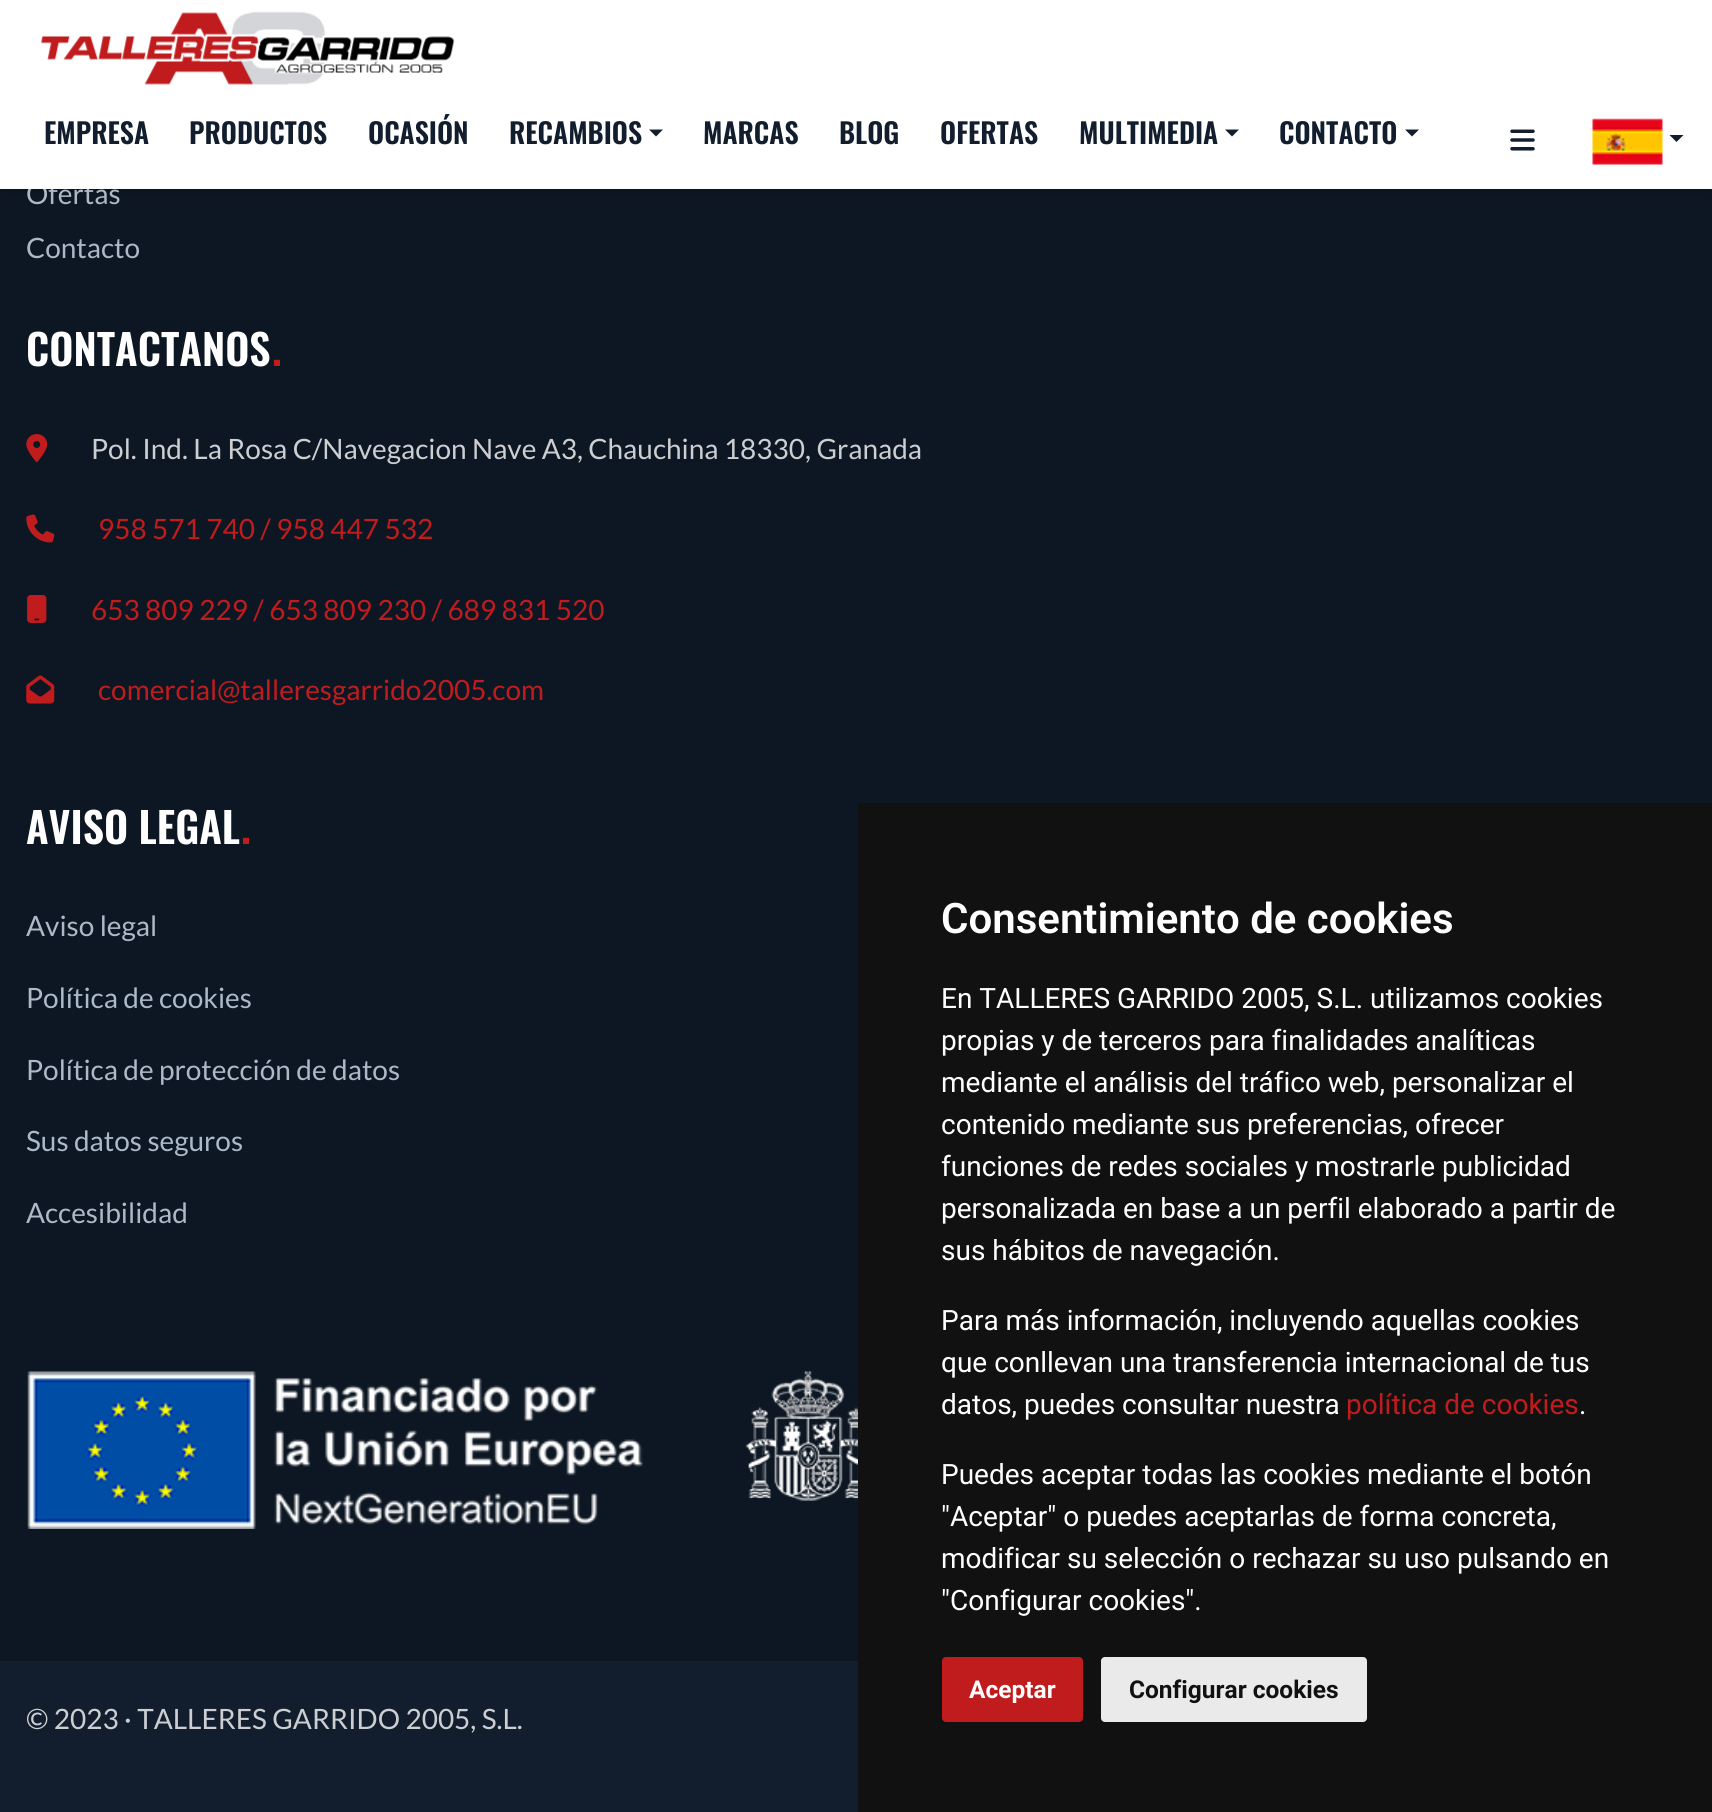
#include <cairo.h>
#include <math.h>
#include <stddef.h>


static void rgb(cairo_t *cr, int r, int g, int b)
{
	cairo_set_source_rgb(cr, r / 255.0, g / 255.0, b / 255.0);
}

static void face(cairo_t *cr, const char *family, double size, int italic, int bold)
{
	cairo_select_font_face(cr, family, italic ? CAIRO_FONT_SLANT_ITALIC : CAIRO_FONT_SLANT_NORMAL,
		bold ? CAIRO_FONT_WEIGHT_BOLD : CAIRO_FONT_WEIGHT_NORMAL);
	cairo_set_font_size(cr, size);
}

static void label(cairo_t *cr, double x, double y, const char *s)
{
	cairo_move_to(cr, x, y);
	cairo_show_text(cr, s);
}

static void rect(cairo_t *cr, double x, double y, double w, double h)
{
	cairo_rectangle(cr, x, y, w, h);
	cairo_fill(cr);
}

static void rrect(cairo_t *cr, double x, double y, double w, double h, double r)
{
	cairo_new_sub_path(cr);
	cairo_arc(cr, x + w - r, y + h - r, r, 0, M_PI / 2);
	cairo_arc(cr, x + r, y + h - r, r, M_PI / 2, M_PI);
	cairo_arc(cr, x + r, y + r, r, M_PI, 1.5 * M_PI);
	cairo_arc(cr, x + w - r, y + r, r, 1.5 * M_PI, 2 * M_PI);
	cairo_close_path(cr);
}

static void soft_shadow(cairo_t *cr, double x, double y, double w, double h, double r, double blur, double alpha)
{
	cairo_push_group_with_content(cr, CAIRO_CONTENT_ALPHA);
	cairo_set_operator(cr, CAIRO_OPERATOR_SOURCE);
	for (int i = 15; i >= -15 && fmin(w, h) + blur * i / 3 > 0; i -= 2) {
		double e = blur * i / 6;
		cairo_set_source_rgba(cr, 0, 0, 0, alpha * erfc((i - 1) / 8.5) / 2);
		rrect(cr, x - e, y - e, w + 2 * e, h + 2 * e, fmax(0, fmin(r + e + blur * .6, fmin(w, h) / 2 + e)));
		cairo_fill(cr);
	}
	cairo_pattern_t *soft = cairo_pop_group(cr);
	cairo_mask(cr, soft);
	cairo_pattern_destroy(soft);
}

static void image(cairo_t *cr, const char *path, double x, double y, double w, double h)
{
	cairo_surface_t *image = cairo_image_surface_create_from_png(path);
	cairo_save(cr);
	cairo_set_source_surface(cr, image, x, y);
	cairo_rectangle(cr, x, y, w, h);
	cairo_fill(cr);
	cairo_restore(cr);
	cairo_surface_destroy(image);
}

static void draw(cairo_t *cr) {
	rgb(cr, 13, 23, 35);
	cairo_paint(cr);
	rgb(cr, 0, 0, 0);
	soft_shadow(cr, -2, -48, 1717, 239, 0, 16, 0.1);
	face(cr, "Lato", 28, 0, 0);
	rgb(cr, 172, 185, 200);
	label(cr, 26, 204, "Ofertas");
	rgb(cr, 255, 255, 255);
	rect(cr, 0, 0, 1712, 189);
	image(cr, "image0.png", 41, 11, 414, 74);
	face(cr, "Oswald SemiBold", 28, 0, 0);
	rgb(cr, 18, 30, 45);
	label(cr, 44, 144, "EMPRESA");
	label(cr, 189, 144, "PRODUCTOS");
	label(cr, 368, 144, "OCASIÓN");
	label(cr, 509, 144, "RECAMBIOS");
	cairo_new_path(cr);
	cairo_move_to(cr, 649, 129.5);
	cairo_line_to(cr, 663, 129.5);
	cairo_line_to(cr, 656, 136.5);
	cairo_close_path(cr);
	cairo_fill(cr);
	label(cr, 703, 144, "MARCAS");
	label(cr, 839, 144, "BLOG");
	label(cr, 940, 144, "OFERTAS");
	label(cr, 1079, 144, "MULTIMEDIA");
	cairo_new_path(cr);
	cairo_move_to(cr, 1225, 129.5);
	cairo_line_to(cr, 1239, 129.5);
	cairo_line_to(cr, 1232, 136.5);
	cairo_close_path(cr);
	cairo_fill(cr);
	label(cr, 1279, 144, "CONTACTO");
	cairo_new_path(cr);
	cairo_move_to(cr, 1405, 129.5);
	cairo_line_to(cr, 1419, 129.5);
	cairo_line_to(cr, 1412, 136.5);
	cairo_close_path(cr);
	cairo_fill(cr);
	image(cr, "image1.png", 1510, 129, 25, 22);
	image(cr, "image2.png", 1592, 118, 71, 47);
	cairo_new_path(cr);
	cairo_move_to(cr, 1669.5, 135);
	cairo_line_to(cr, 1683.5, 135);
	cairo_line_to(cr, 1676.5, 142);
	cairo_close_path(cr);
	cairo_fill(cr);
	face(cr, "Lato", 28, 0, 0);
	rgb(cr, 172, 185, 200);
	label(cr, 26, 258, "Contacto");
	face(cr, "Oswald SemiBold", 42, 0, 0);
	rgb(cr, 255, 255, 255);
	label(cr, 26, 366, "CONTACTANOS");
	rgb(cr, 192, 27, 29);
	label(cr, 272, 366, ".");
	image(cr, "image3.png", 26, 434, 22, 28);
	face(cr, "Lato", 28, 0, 0);
	rgb(cr, 204, 206, 209);
	label(cr, 91, 459, "Pol. Ind. La Rosa C/Navegacion Nave A3, Chauchina 18330, Granada");
	image(cr, "image4.png", 26, 514, 29, 29);
	rgb(cr, 192, 27, 29);
	label(cr, 98, 539, "958 571 740 / 958 447 532");
	image(cr, "image5.png", 27, 595, 20, 28);
	label(cr, 91, 620, "653 809 229 / 653 809 230 / 689 831 520");
	image(cr, "image6.png", 26, 675, 29, 29);
	label(cr, 98, 700, "comercial@talleresgarrido2005.com");
	face(cr, "Oswald SemiBold", 42, 0, 0);
	rgb(cr, 255, 255, 255);
	label(cr, 26, 844, "AVISO LEGAL");
	rgb(cr, 192, 27, 29);
	label(cr, 241, 844, ".");
	face(cr, "Lato", 28, 0, 0);
	rgb(cr, 172, 185, 200);
	label(cr, 26, 936, "Aviso legal");
	label(cr, 26, 1008, "Política de cookies");
	label(cr, 26, 1080, "Política de protección de datos");
	label(cr, 26, 1151, "Sus datos seguros");
	label(cr, 26, 1223, "Accesibilidad");
	image(cr, "image7.png", 27, 1371, 616, 158);
	image(cr, "image8.png", 745, 1371, 113, 130);
	rgb(cr, 18, 30, 45);
	rect(cr, 0, 1661, 858, 151);
	rgb(cr, 204, 206, 209);
	label(cr, 26, 1729, "© 2023 · TALLERES GARRIDO 2005, S.L.");
	rgb(cr, 17, 17, 17);
	rect(cr, 858, 803, 854, 1009);
	face(cr, "Roboto SemiBold", 42, 0, 0);
	rgb(cr, 255, 255, 255);
	label(cr, 941, 933, "Consentimiento de cookies");
	face(cr, "Roboto", 28, 0, 0);
	label(cr, 941, 1008, "En TALLERES GARRIDO 2005, S.L. utilizamos cookies");
	label(cr, 941, 1050, "propias y de terceros para finalidades analíticas");
	label(cr, 941, 1092, "mediante el análisis del tráfico web, personalizar el");
	label(cr, 941, 1134, "contenido mediante sus preferencias, ofrecer");
	label(cr, 941, 1176, "funciones de redes sociales y mostrarle publicidad");
	label(cr, 941, 1218, "personalizada en base a un perfil elaborado a partir de");
	label(cr, 941, 1260, "sus hábitos de navegación.");
	label(cr, 941, 1330, "Para más información, incluyendo aquellas cookies");
	label(cr, 941, 1372, "que conllevan una transferencia internacional de tus");
	label(cr, 941, 1414, "datos, puedes consultar nuestra");
	rgb(cr, 192, 27, 29);
	label(cr, 1346, 1414, "política de cookies");
	rgb(cr, 255, 255, 255);
	label(cr, 1579, 1414, ".");
	label(cr, 941, 1484, "Puedes aceptar todas las cookies mediante el botón");
	label(cr, 941, 1526, "\"Aceptar\" o puedes aceptarlas de forma concreta,");
	label(cr, 941, 1568, "modificar su selección o rechazar su uso pulsando en");
	label(cr, 941, 1610, "\"Configurar cookies\".");
	rgb(cr, 192, 27, 29);
	rrect(cr, 942, 1657, 141, 65, 4);
	cairo_fill(cr);
	face(cr, "Roboto", 24.5, 0, 1);
	rgb(cr, 255, 255, 255);
	label(cr, 969, 1698, "Aceptar");
	rgb(cr, 234, 234, 234);
	rrect(cr, 1101, 1657, 266, 65, 4);
	cairo_fill(cr);
	rgb(cr, 17, 17, 17);
	label(cr, 1129, 1698, "Configurar cookies");
}

int main(void) {
	cairo_surface_t *surface = cairo_image_surface_create(CAIRO_FORMAT_RGB24, 1712, 1812);
	cairo_t *cr = cairo_create(surface);
	cairo_font_options_t *options = cairo_font_options_create();
	cairo_font_options_set_hint_metrics(options, CAIRO_HINT_METRICS_OFF);
	cairo_font_options_set_hint_style(options, CAIRO_HINT_STYLE_NONE);
	cairo_set_font_options(cr, options);
	cairo_set_miter_limit(cr, 4);
	draw(cr);
	cairo_surface_write_to_png(surface, "render.png");
	cairo_font_options_destroy(options);
	cairo_destroy(cr);
	cairo_surface_destroy(surface);
	return 0;
}
